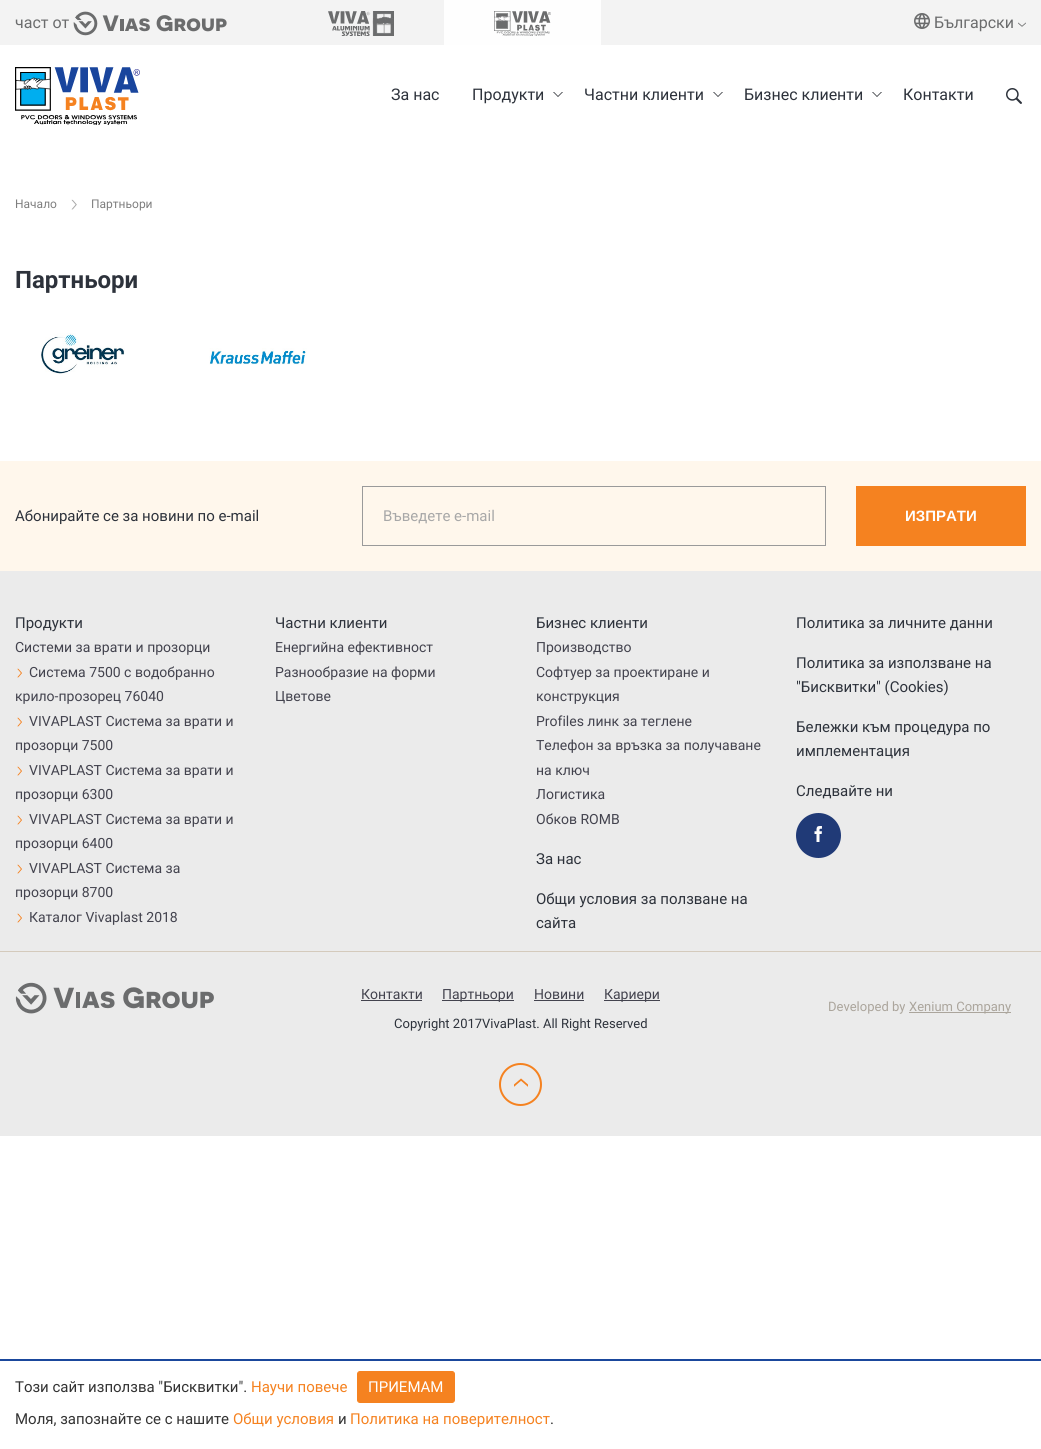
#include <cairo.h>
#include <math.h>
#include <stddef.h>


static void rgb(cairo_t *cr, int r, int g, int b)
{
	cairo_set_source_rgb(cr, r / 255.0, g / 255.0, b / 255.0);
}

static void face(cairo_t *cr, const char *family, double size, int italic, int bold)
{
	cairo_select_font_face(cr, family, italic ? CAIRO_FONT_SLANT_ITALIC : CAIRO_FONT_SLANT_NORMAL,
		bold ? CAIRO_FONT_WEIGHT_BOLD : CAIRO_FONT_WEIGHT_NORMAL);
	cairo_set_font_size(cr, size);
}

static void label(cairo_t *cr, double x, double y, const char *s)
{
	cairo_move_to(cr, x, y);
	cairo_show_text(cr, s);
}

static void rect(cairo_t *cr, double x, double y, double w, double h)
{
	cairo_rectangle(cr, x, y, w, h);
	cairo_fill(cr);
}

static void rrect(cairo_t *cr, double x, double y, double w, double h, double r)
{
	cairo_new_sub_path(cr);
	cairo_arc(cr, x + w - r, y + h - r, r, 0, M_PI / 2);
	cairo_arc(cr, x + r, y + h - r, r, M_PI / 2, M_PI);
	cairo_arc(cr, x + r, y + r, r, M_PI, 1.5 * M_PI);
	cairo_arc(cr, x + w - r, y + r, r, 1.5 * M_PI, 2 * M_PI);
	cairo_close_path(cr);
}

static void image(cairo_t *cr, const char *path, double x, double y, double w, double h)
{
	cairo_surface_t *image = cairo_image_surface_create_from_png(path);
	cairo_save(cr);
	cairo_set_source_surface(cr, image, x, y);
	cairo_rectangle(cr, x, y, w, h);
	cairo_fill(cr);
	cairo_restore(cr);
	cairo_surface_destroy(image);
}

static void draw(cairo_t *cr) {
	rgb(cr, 255, 255, 255);
	cairo_paint(cr);
	rgb(cr, 243, 243, 243);
	rect(cr, 0, 0, 1041, 45);
	face(cr, "Roboto", 16, 0, 0);
	rgb(cr, 107, 108, 109);
	label(cr, 15, 28, "част от");
	image(cr, "image0.png", 73, 11, 154, 25);
	image(cr, "image1.png", 328, 11, 66, 25);
	rgb(cr, 254, 254, 254);
	rect(cr, 444, 0, 157, 45);
	image(cr, "image2.png", 494, 11, 57, 25);
	image(cr, "image3.png", 914, 13, 16, 16);
	rgb(cr, 107, 108, 109);
	label(cr, 934, 28, "Български");
	image(cr, "image4.png", 1018, 22, 8, 5);
	image(cr, "image5.png", 15, 67, 125, 58);
	rgb(cr, 45, 50, 59);
	label(cr, 391, 100, "За нас");
	label(cr, 472, 100, "Продукти");
	rgb(cr, 30, 33, 39);
	cairo_new_path(cr);
	cairo_move_to(cr, 553, 92);
	cairo_line_to(cr, 563, 92);
	cairo_line_to(cr, 558, 97);
	cairo_close_path(cr);
	cairo_fill(cr);
	rgb(cr, 254, 254, 254);
	cairo_new_path(cr);
	cairo_move_to(cr, 554, 92);
	cairo_line_to(cr, 562, 92);
	cairo_line_to(cr, 558, 96);
	cairo_close_path(cr);
	cairo_fill(cr);
	rgb(cr, 45, 50, 59);
	label(cr, 584, 100, "Частни клиенти");
	rgb(cr, 30, 33, 39);
	cairo_new_path(cr);
	cairo_move_to(cr, 713, 92);
	cairo_line_to(cr, 723, 92);
	cairo_line_to(cr, 718, 97);
	cairo_close_path(cr);
	cairo_fill(cr);
	rgb(cr, 254, 254, 254);
	cairo_new_path(cr);
	cairo_move_to(cr, 714, 92);
	cairo_line_to(cr, 722, 92);
	cairo_line_to(cr, 718, 96);
	cairo_close_path(cr);
	cairo_fill(cr);
	rgb(cr, 45, 50, 59);
	label(cr, 744, 100, "Бизнес клиенти");
	rgb(cr, 30, 33, 39);
	cairo_new_path(cr);
	cairo_move_to(cr, 872, 92);
	cairo_line_to(cr, 882, 92);
	cairo_line_to(cr, 877, 97);
	cairo_close_path(cr);
	cairo_fill(cr);
	rgb(cr, 254, 254, 254);
	cairo_new_path(cr);
	cairo_move_to(cr, 873, 92);
	cairo_line_to(cr, 881, 92);
	cairo_line_to(cr, 877, 96);
	cairo_close_path(cr);
	cairo_fill(cr);
	rgb(cr, 45, 50, 59);
	label(cr, 903, 100, "Контакти");
	image(cr, "image6.png", 1006, 88, 16, 16);
	face(cr, "Roboto", 12, 0, 0);
	rgb(cr, 126, 126, 126);
	label(cr, 15, 208, "Начало");
	image(cr, "image7.png", 71, 199, 6, 11);
	label(cr, 91, 208, "Партньори");
	face(cr, "Roboto", 24, 0, 1);
	rgb(cr, 45, 50, 59);
	label(cr, 15, 288, "Партньори");
	image(cr, "image8.png", 41, 333, 84, 41);
	image(cr, "image9.png", 209, 348, 98, 17);
	rgb(cr, 255, 247, 236);
	rect(cr, 0, 461, 1041, 110);
	face(cr, "Roboto", 15, 0, 0);
	rgb(cr, 45, 50, 59);
	label(cr, 15, 521, "Абонирайте се за новини по e-mail");
	cairo_rectangle(cr, 362.5, 486.5, 463, 59);
	rgb(cr, 154, 154, 154);
	cairo_set_line_width(cr, 1);
	cairo_stroke(cr);
	rgb(cr, 168, 168, 168);
	label(cr, 383, 521, "Въведете e-mail");
	rgb(cr, 245, 130, 32);
	rect(cr, 856, 486, 170, 60);
	face(cr, "Liberation Sans", 15, 0, 1);
	rgb(cr, 254, 254, 254);
	label(cr, 905, 521, "ИЗПРАТИ");
	rgb(cr, 235, 235, 235);
	rect(cr, 0, 571, 1041, 565);
	rgb(cr, 212, 202, 188);
	rect(cr, 0, 951, 1041, 1);
	face(cr, "Roboto", 15, 0, 0);
	rgb(cr, 45, 50, 59);
	label(cr, 15, 628, "Продукти");
	face(cr, "Roboto", 14, 0, 0);
	rgb(cr, 67, 67, 78);
	label(cr, 15, 652, "Системи за врати и прозорци");
	image(cr, "image10.png", 17, 668, 5, 10);
	label(cr, 29, 677, "Система 7500 с водобранно");
	label(cr, 15, 701, "крило-прозорец 76040");
	image(cr, "image10.png", 17, 717, 5, 10);
	label(cr, 29, 726, "VIVAPLAST Система за врати и");
	label(cr, 15, 750, "прозорци 7500");
	image(cr, "image10.png", 17, 766, 5, 10);
	label(cr, 29, 775, "VIVAPLAST Система за врати и");
	label(cr, 15, 799, "прозорци 6300");
	image(cr, "image10.png", 17, 815, 5, 10);
	label(cr, 29, 824, "VIVAPLAST Система за врати и");
	label(cr, 15, 848, "прозорци 6400");
	image(cr, "image10.png", 17, 864, 5, 10);
	label(cr, 29, 873, "VIVAPLAST Система за");
	label(cr, 15, 897, "прозорци 8700");
	image(cr, "image10.png", 17, 913, 5, 10);
	label(cr, 29, 922, "Каталог Vivaplast 2018");
	face(cr, "Roboto", 15, 0, 0);
	rgb(cr, 45, 50, 59);
	label(cr, 275, 628, "Частни клиенти");
	face(cr, "Roboto", 14, 0, 0);
	rgb(cr, 67, 67, 78);
	label(cr, 275, 652, "Енергийна ефективност");
	label(cr, 275, 677, "Разнообразие на форми");
	label(cr, 275, 701, "Цветове");
	face(cr, "Roboto", 15, 0, 0);
	rgb(cr, 45, 50, 59);
	label(cr, 536, 628, "Бизнес клиенти");
	face(cr, "Roboto", 14, 0, 0);
	rgb(cr, 67, 67, 78);
	label(cr, 536, 652, "Производство");
	label(cr, 536, 677, "Софтуер за проектиране и");
	label(cr, 536, 701, "конструкция");
	label(cr, 536, 726, "Profiles линк за теглене");
	label(cr, 536, 750, "Телефон за връзка за получаване");
	label(cr, 536, 775, "на ключ");
	label(cr, 536, 799, "Логистика");
	label(cr, 536, 824, "Обков ROMB");
	face(cr, "Roboto", 15, 0, 0);
	rgb(cr, 45, 50, 59);
	label(cr, 796, 628, "Политика за личните данни");
	label(cr, 796, 668, "Политика за използване на");
	label(cr, 796, 692, "\"Бисквитки\" (Cookies)");
	label(cr, 796, 732, "Бележки към процедура по");
	label(cr, 796, 756, "имплементация");
	label(cr, 796, 796, "Следвайте ни");
	rgb(cr, 32, 58, 119);
	cairo_new_path(cr);
	cairo_arc(cr, 818.5, 835.5, 22.5, 0, 2 * M_PI);
	cairo_fill(cr);
	image(cr, "image11.png", 814, 826, 8, 16);
	rgb(cr, 45, 50, 59);
	label(cr, 536, 864, "За нас");
	label(cr, 536, 904, "Общи условия за ползване на");
	label(cr, 536, 928, "сайта");
	image(cr, "image12.png", 15, 982, 199, 32);
	face(cr, "Roboto", 14, 0, 0);
	rgb(cr, 67, 67, 78);
	label(cr, 361, 999, "Контакти");
	rect(cr, 361, 1000, 61, 1);
	rect(cr, 442, 1000, 72, 1);
	label(cr, 442, 999, "Партньори");
	label(cr, 534, 999, "Новини");
	rect(cr, 534, 1000, 50, 1);
	rect(cr, 604, 1000, 56, 1);
	label(cr, 604, 999, "Кариери");
	face(cr, "Roboto", 13, 0, 0);
	rgb(cr, 45, 50, 59);
	label(cr, 394, 1028, "Copyright 2017VivaPlast. All Right Reserved");
	rgb(cr, 171, 165, 156);
	label(cr, 828, 1011, "Developed by");
	rect(cr, 909, 1012, 102, 1);
	label(cr, 909, 1011, "Xenium Company");
	cairo_new_path(cr);
	cairo_arc(cr, 520.5, 1084.5, 20.5, 0, 2 * M_PI);
	rgb(cr, 245, 130, 32);
	cairo_set_line_width(cr, 2);
	cairo_stroke(cr);
	image(cr, "image13.png", 514, 1078, 14, 9);
	rgb(cr, 26, 72, 156);
	rect(cr, 0, 1359, 1041, 2);
	face(cr, "Roboto", 15, 0, 0);
	rgb(cr, 51, 51, 51);
	label(cr, 15, 1392, "Tози сайт използва \"Бисквитки\".");
	rgb(cr, 245, 130, 32);
	label(cr, 251, 1392, "Научи повече");
	rrect(cr, 357.5, 1371.5, 97, 31, 2.5);
	cairo_fill_preserve(cr);
	cairo_set_line_width(cr, 1);
	cairo_stroke(cr);
	rgb(cr, 254, 254, 254);
	label(cr, 368, 1392, "ПРИЕМАМ");
	rgb(cr, 51, 51, 51);
	label(cr, 15, 1424, "Моля, запознайте се с нашите");
	rgb(cr, 245, 130, 32);
	label(cr, 233, 1424, "Общи условия");
	rgb(cr, 51, 51, 51);
	label(cr, 338, 1424, "и");
	rgb(cr, 245, 130, 32);
	label(cr, 350, 1424, "Политика на поверителност");
	rgb(cr, 51, 51, 51);
	label(cr, 550, 1424, ".");
}

int main(void) {
	cairo_surface_t *surface = cairo_image_surface_create(CAIRO_FORMAT_RGB24, 1041, 1449);
	cairo_t *cr = cairo_create(surface);
	cairo_font_options_t *options = cairo_font_options_create();
	cairo_font_options_set_hint_metrics(options, CAIRO_HINT_METRICS_OFF);
	cairo_font_options_set_hint_style(options, CAIRO_HINT_STYLE_NONE);
	cairo_set_font_options(cr, options);
	cairo_set_miter_limit(cr, 4);
	draw(cr);
	cairo_surface_write_to_png(surface, "render.png");
	cairo_font_options_destroy(options);
	cairo_destroy(cr);
	cairo_surface_destroy(surface);
	return 0;
}
